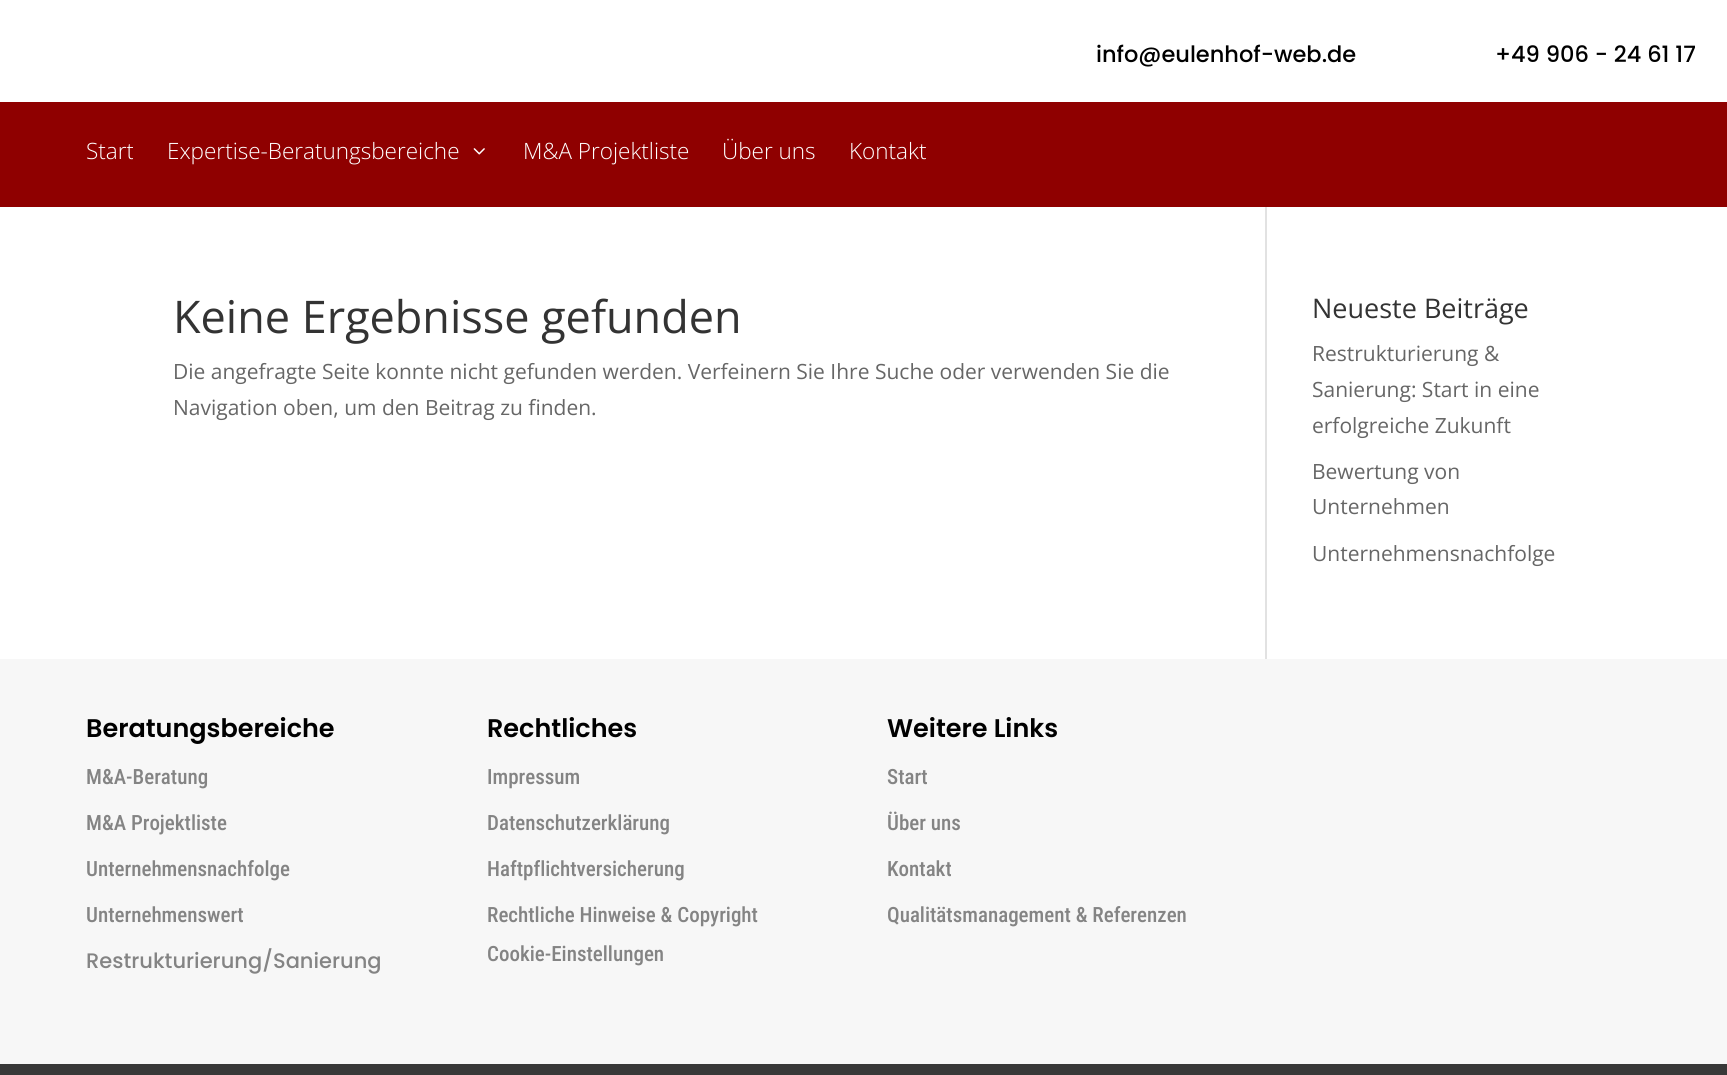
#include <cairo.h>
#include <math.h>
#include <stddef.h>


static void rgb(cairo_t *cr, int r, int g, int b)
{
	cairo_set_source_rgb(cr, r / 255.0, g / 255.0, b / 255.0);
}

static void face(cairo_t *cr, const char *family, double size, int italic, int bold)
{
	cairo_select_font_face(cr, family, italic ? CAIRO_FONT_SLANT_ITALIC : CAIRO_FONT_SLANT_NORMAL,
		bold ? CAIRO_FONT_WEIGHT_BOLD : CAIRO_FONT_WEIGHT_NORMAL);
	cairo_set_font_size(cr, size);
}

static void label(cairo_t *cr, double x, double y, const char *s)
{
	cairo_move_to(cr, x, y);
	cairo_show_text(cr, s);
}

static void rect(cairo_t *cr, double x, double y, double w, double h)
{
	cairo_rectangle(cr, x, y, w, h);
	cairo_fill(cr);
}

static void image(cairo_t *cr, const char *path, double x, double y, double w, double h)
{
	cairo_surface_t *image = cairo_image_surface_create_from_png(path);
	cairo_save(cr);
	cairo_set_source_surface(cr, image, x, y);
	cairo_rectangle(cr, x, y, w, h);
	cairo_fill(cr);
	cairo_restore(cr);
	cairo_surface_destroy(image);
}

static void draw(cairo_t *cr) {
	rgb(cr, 255, 255, 255);
	cairo_paint(cr);
	face(cr, "Poppins Medium", 22.5, 0, 0);
	rgb(cr, 0, 0, 0);
	label(cr, 1096, 62, "info@eulenhof-web.de");
	label(cr, 1495, 62, "+49 906 - 24 61 17");
	rgb(cr, 143, 0, 0);
	rect(cr, 0, 102, 1727, 105);
	face(cr, "Open Sans Light", 22.5, 0, 0);
	rgb(cr, 255, 255, 255);
	label(cr, 86, 159, "Start");
	label(cr, 167, 159, "Expertise-Beratungsbereiche");
	image(cr, "image0.png", 473, 148, 12, 7);
	label(cr, 523, 159, "M&A Projektliste");
	label(cr, 722, 159, "Über uns");
	label(cr, 849, 159, "Kontakt");
	rgb(cr, 226, 226, 226);
	rect(cr, 1265, 207, 2, 452);
	face(cr, "Open Sans", 45, 0, 0);
	rgb(cr, 51, 51, 51);
	label(cr, 173, 333, "Keine Ergebnisse gefunden");
	face(cr, "Open Sans", 21, 0, 0);
	rgb(cr, 102, 102, 102);
	label(cr, 173, 379, "Die angefragte Seite konnte nicht gefunden werden. Verfeinern Sie Ihre Suche oder verwenden Sie die");
	label(cr, 173, 415, "Navigation oben, um den Beitrag zu finden.");
	face(cr, "Open Sans", 27, 0, 0);
	rgb(cr, 51, 51, 51);
	label(cr, 1312, 318, "Neueste Beiträge");
	face(cr, "Open Sans", 21, 0, 0);
	rgb(cr, 102, 102, 102);
	label(cr, 1312, 361, "Restrukturierung &");
	label(cr, 1312, 397, "Sanierung: Start in eine");
	label(cr, 1312, 433, "erfolgreiche Zukunft");
	label(cr, 1312, 479, "Bewertung von");
	label(cr, 1312, 514, "Unternehmen");
	label(cr, 1312, 561, "Unternehmensnachfolge");
	rgb(cr, 247, 247, 247);
	rect(cr, 0, 659, 1727, 405);
	face(cr, "Poppins SemiBold", 25.5, 0, 0);
	rgb(cr, 0, 0, 0);
	label(cr, 86, 737, "Beratungsbereiche");
	face(cr, "Roboto Condensed Medium", 21, 0, 0);
	rgb(cr, 132, 132, 132);
	label(cr, 86, 784, "M&A-Beratung");
	label(cr, 86, 830, "M&A Projektliste");
	label(cr, 86, 876, "Unternehmensnachfolge");
	label(cr, 86, 922, "Unternehmenswert");
	face(cr, "Poppins Medium", 21, 0, 0);
	label(cr, 86, 968, "Restrukturierung/Sanierung");
	face(cr, "Poppins SemiBold", 25.5, 0, 0);
	rgb(cr, 0, 0, 0);
	label(cr, 487, 737, "Rechtliches");
	face(cr, "Roboto Condensed Medium", 21, 0, 0);
	rgb(cr, 132, 132, 132);
	label(cr, 487, 784, "Impressum");
	label(cr, 487, 830, "Datenschutzerklärung");
	label(cr, 487, 876, "Haftpflichtversicherung");
	label(cr, 487, 922, "Rechtliche Hinweise & Copyright");
	label(cr, 487, 961, "Cookie-Einstellungen");
	face(cr, "Poppins SemiBold", 25.5, 0, 0);
	rgb(cr, 0, 0, 0);
	label(cr, 887, 737, "Weitere Links");
	face(cr, "Roboto Condensed Medium", 21, 0, 0);
	rgb(cr, 132, 132, 132);
	label(cr, 887, 784, "Start");
	label(cr, 887, 830, "Über uns");
	label(cr, 887, 876, "Kontakt");
	label(cr, 887, 922, "Qualitätsmanagement & Referenzen");
	rgb(cr, 56, 56, 56);
	rect(cr, 0, 1064, 1727, 11);
}

int main(void) {
	cairo_surface_t *surface = cairo_image_surface_create(CAIRO_FORMAT_RGB24, 1727, 1075);
	cairo_t *cr = cairo_create(surface);
	cairo_font_options_t *options = cairo_font_options_create();
	cairo_font_options_set_hint_metrics(options, CAIRO_HINT_METRICS_OFF);
	cairo_font_options_set_hint_style(options, CAIRO_HINT_STYLE_NONE);
	cairo_set_font_options(cr, options);
	cairo_set_miter_limit(cr, 4);
	draw(cr);
	cairo_surface_write_to_png(surface, "render.png");
	cairo_font_options_destroy(options);
	cairo_destroy(cr);
	cairo_surface_destroy(surface);
	return 0;
}
